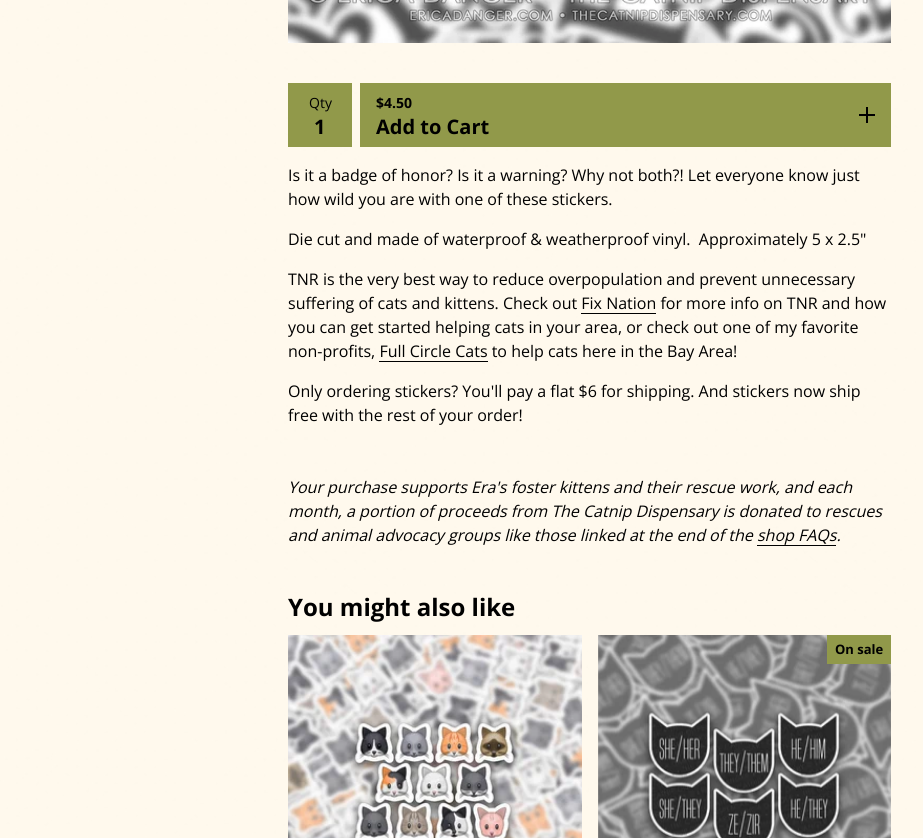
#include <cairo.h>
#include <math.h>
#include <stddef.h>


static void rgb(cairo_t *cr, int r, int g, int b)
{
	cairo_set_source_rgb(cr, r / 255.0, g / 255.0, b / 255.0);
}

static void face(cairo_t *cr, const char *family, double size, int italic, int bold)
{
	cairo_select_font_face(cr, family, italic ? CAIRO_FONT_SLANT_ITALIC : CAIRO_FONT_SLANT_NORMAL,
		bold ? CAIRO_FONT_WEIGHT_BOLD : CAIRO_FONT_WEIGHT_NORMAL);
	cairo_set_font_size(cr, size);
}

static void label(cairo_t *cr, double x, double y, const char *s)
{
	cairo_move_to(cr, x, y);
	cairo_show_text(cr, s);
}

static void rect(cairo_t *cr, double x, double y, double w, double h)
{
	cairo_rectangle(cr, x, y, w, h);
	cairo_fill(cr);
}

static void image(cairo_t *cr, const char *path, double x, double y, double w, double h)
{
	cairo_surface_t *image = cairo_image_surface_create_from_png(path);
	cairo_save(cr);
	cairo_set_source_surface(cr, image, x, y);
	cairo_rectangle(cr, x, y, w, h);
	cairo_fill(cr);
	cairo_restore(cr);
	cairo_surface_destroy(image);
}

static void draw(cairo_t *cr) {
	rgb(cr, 255, 255, 255);
	cairo_paint(cr);
	image(cr, "image0.png", 0, 0, 923, 838);
	image(cr, "image1.png", 288, 0, 603, 43);
	rgb(cr, 145, 153, 74);
	rect(cr, 288, 83, 64, 64);
	face(cr, "Open Sans", 14, 0, 0);
	rgb(cr, 0, 0, 0);
	label(cr, 309, 108, "Qty");
	face(cr, "Open Sans", 20, 0, 1);
	label(cr, 314, 134, "1");
	rgb(cr, 145, 153, 74);
	rect(cr, 360, 83, 531, 64);
	face(cr, "Open Sans", 14, 0, 1);
	rgb(cr, 0, 0, 0);
	label(cr, 376, 108, "$4.50");
	image(cr, "image2.png", 859, 107, 16, 16);
	face(cr, "Open Sans", 20, 0, 1);
	label(cr, 376, 134, "Add to Cart");
	face(cr, "Open Sans", 16, 0, 0);
	label(cr, 288, 181, "Is it a badge of honor? Is it a warning? Why not both?! Let everyone know just");
	label(cr, 288, 205, "how wild you are with one of these stickers.");
	label(cr, 288, 245, "Die cut and made of waterproof & weatherproof vinyl.  Approximately 5 x 2.5\"");
	label(cr, 288, 285, "TNR is the very best way to reduce overpopulation and prevent unnecessary");
	label(cr, 288, 309, "suffering of cats and kittens. Check out Fix Nation for more info on TNR and how");
	rect(cr, 581, 313, 75, 1);
	label(cr, 288, 333, "you can get started helping cats in your area, or check out one of my favorite");
	label(cr, 288, 357, "non-profits, Full Circle Cats to help cats here in the Bay Area!");
	rect(cr, 379, 361, 109, 1);
	label(cr, 288, 397, "Only ordering stickers? You'll pay a flat $6 for shipping. And stickers now ship");
	label(cr, 288, 421, "free with the rest of your order!");
	face(cr, "Open Sans", 16, 1, 0);
	label(cr, 288, 493, "Your purchase supports Era's foster kittens and their rescue work, and each");
	label(cr, 288, 517, "month, a portion of proceeds from The Catnip Dispensary is donated to rescues");
	label(cr, 288, 541, "and animal advocacy groups like those linked at the end of the shop FAQs.");
	rect(cr, 757, 545, 79, 1);
	face(cr, "Open Sans", 24, 0, 1);
	label(cr, 288, 616, "You might also like");
	image(cr, "image3.png", 288, 635, 294, 203);
	image(cr, "image4.png", 598, 635, 293, 203);
	rgb(cr, 145, 153, 74);
	rect(cr, 827, 635, 64, 29);
	face(cr, "Open Sans", 13, 0, 1);
	rgb(cr, 0, 0, 0);
	label(cr, 835, 654, "On sale");
}

int main(void) {
	cairo_surface_t *surface = cairo_image_surface_create(CAIRO_FORMAT_RGB24, 923, 838);
	cairo_t *cr = cairo_create(surface);
	cairo_font_options_t *options = cairo_font_options_create();
	cairo_font_options_set_hint_metrics(options, CAIRO_HINT_METRICS_OFF);
	cairo_font_options_set_hint_style(options, CAIRO_HINT_STYLE_NONE);
	cairo_set_font_options(cr, options);
	cairo_set_miter_limit(cr, 4);
	draw(cr);
	cairo_surface_write_to_png(surface, "render.png");
	cairo_font_options_destroy(options);
	cairo_destroy(cr);
	cairo_surface_destroy(surface);
	return 0;
}
